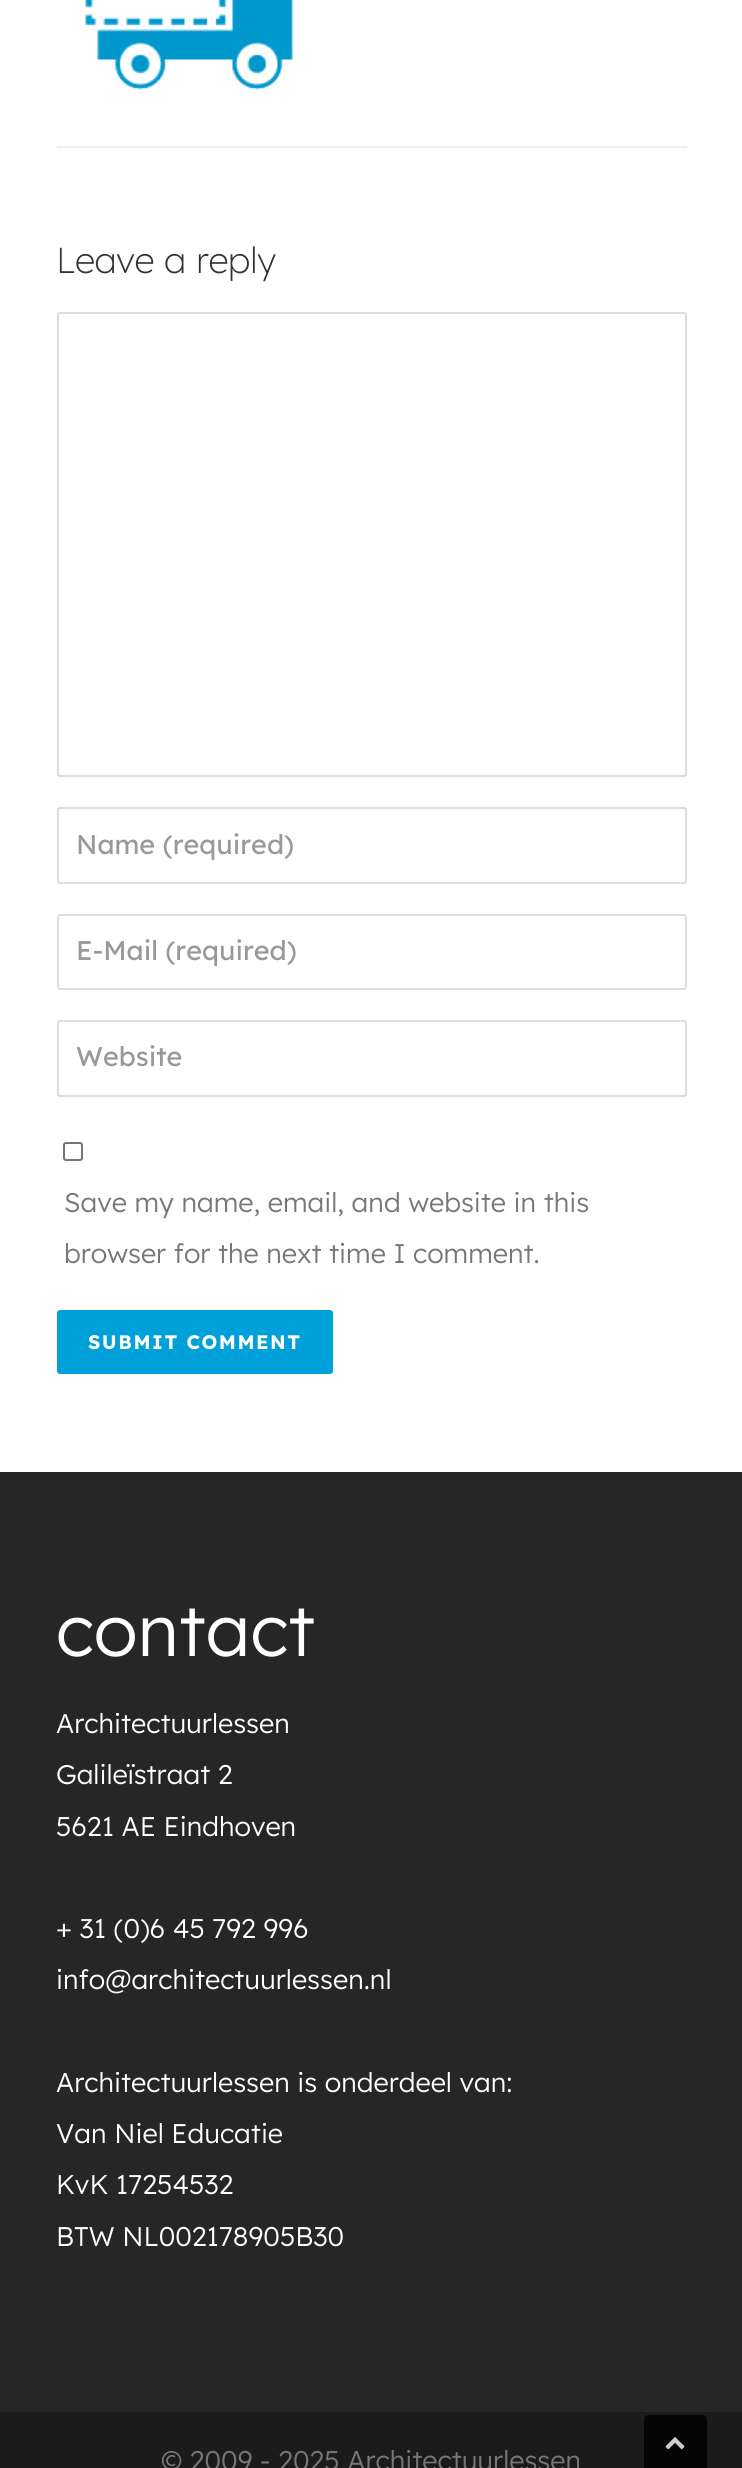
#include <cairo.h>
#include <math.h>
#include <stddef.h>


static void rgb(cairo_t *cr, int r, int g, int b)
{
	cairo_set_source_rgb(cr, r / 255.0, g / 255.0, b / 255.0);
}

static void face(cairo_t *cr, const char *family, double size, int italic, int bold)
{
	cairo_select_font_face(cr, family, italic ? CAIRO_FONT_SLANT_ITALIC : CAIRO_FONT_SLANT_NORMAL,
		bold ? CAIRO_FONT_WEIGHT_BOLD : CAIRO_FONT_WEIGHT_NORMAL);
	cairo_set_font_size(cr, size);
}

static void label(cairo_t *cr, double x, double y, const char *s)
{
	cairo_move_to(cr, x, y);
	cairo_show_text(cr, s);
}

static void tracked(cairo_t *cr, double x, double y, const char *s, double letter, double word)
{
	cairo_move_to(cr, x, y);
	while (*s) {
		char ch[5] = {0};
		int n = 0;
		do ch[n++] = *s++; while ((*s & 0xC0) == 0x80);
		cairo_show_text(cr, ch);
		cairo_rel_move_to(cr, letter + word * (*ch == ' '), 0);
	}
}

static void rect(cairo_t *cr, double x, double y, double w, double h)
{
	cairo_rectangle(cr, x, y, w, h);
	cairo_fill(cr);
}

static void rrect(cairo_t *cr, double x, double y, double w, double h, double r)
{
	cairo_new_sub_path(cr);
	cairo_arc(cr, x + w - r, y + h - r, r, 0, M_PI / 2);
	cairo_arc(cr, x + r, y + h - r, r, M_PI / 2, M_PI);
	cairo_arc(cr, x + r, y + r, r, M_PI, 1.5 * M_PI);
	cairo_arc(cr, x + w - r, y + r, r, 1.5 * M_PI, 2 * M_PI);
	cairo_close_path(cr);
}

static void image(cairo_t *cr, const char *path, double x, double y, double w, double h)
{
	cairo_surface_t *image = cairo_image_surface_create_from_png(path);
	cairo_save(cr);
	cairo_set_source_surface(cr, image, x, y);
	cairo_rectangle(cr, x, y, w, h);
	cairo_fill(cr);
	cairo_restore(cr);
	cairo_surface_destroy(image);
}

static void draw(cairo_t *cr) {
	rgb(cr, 255, 255, 255);
	cairo_paint(cr);
	image(cr, "image0.png", 85, 0, 208, 90);
	rgb(cr, 239, 239, 239);
	rect(cr, 57, 146, 630, 2);
	face(cr, "Lexend ExtraLight", 36, 0, 0);
	rgb(cr, 51, 51, 51);
	label(cr, 56, 273, "Leave a reply");
	rrect(cr, 58, 313, 628, 463, 2);
	rgb(cr, 221, 221, 221);
	cairo_stroke(cr);
	rrect(cr, 58, 808, 628, 75, 2);
	cairo_stroke(cr);
	face(cr, "Lexend", 27, 0, 0);
	rgb(cr, 153, 153, 153);
	label(cr, 76, 854, "Name (required)");
	rrect(cr, 58, 915, 628, 74, 2);
	rgb(cr, 221, 221, 221);
	cairo_stroke(cr);
	rgb(cr, 153, 153, 153);
	label(cr, 76, 960, "E-Mail (required)");
	rrect(cr, 58, 1021, 628, 75, 2);
	rgb(cr, 221, 221, 221);
	cairo_stroke(cr);
	rgb(cr, 153, 153, 153);
	label(cr, 76, 1066, "Website");
	rrect(cr, 64, 1143, 18, 17, 2);
	rgb(cr, 118, 118, 118);
	cairo_stroke(cr);
	face(cr, "Lexend Light", 27, 0, 0);
	rgb(cr, 119, 119, 119);
	label(cr, 64, 1212, "Save my name, email, and website in this");
	label(cr, 64, 1263, "browser for the next time I comment.");
	rgb(cr, 0, 160, 219);
	rrect(cr, 58, 1311, 274, 62, 2);
	cairo_fill_preserve(cr);
	cairo_stroke(cr);
	face(cr, "Lexend", 19.5, 0, 1);
	rgb(cr, 255, 255, 255);
	tracked(cr, 88, 1349, "SUBMIT COMMENT", 1.5, 0);
	rgb(cr, 38, 38, 38);
	rect(cr, 0, 1472, 742, 940);
	face(cr, "Lexend Light", 72, 0, 0);
	rgb(cr, 255, 255, 255);
	label(cr, 56, 1656, "contact");
	face(cr, "Lexend Light", 27, 0, 0);
	label(cr, 56, 1733, "Architectuurlessen");
	label(cr, 56, 1784, "Galileïstraat 2");
	label(cr, 56, 1836, "5621 AE Eindhoven");
	label(cr, 56, 1938, "+ 31 (0)6 45 792 996");
	label(cr, 56, 1989, "info@architectuurlessen.nl");
	label(cr, 56, 2092, "Architectuurlessen is onderdeel van:");
	label(cr, 56, 2143, "Van Niel Educatie");
	label(cr, 56, 2194, "KvK 17254532");
	label(cr, 56, 2246, "BTW NL002178905B30");
	rgb(cr, 27, 27, 27);
	rect(cr, 0, 2412, 742, 56);
	rgb(cr, 119, 119, 119);
	label(cr, 161, 2470, "© 2009 - 2025 Architectuurlessen");
	rgb(cr, 5, 5, 5);
	cairo_new_path(cr);
	cairo_move_to(cr, 649, 2415);
	cairo_line_to(cr, 702, 2415);
	cairo_curve_to(cr, 705, 2415, 707, 2417, 707, 2420);
	cairo_line_to(cr, 707, 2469);
	cairo_line_to(cr, 644, 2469);
	cairo_line_to(cr, 644, 2420);
	cairo_curve_to(cr, 644, 2417, 646, 2415, 649, 2415);
	cairo_close_path(cr);
	cairo_fill(cr);
	image(cr, "image1.png", 665, 2437, 20, 13);
}

int main(void) {
	cairo_surface_t *surface = cairo_image_surface_create(CAIRO_FORMAT_RGB24, 742, 2468);
	cairo_t *cr = cairo_create(surface);
	cairo_font_options_t *options = cairo_font_options_create();
	cairo_font_options_set_hint_metrics(options, CAIRO_HINT_METRICS_OFF);
	cairo_font_options_set_hint_style(options, CAIRO_HINT_STYLE_NONE);
	cairo_set_font_options(cr, options);
	cairo_set_miter_limit(cr, 4);
	draw(cr);
	cairo_surface_write_to_png(surface, "render.png");
	cairo_font_options_destroy(options);
	cairo_destroy(cr);
	cairo_surface_destroy(surface);
	return 0;
}
